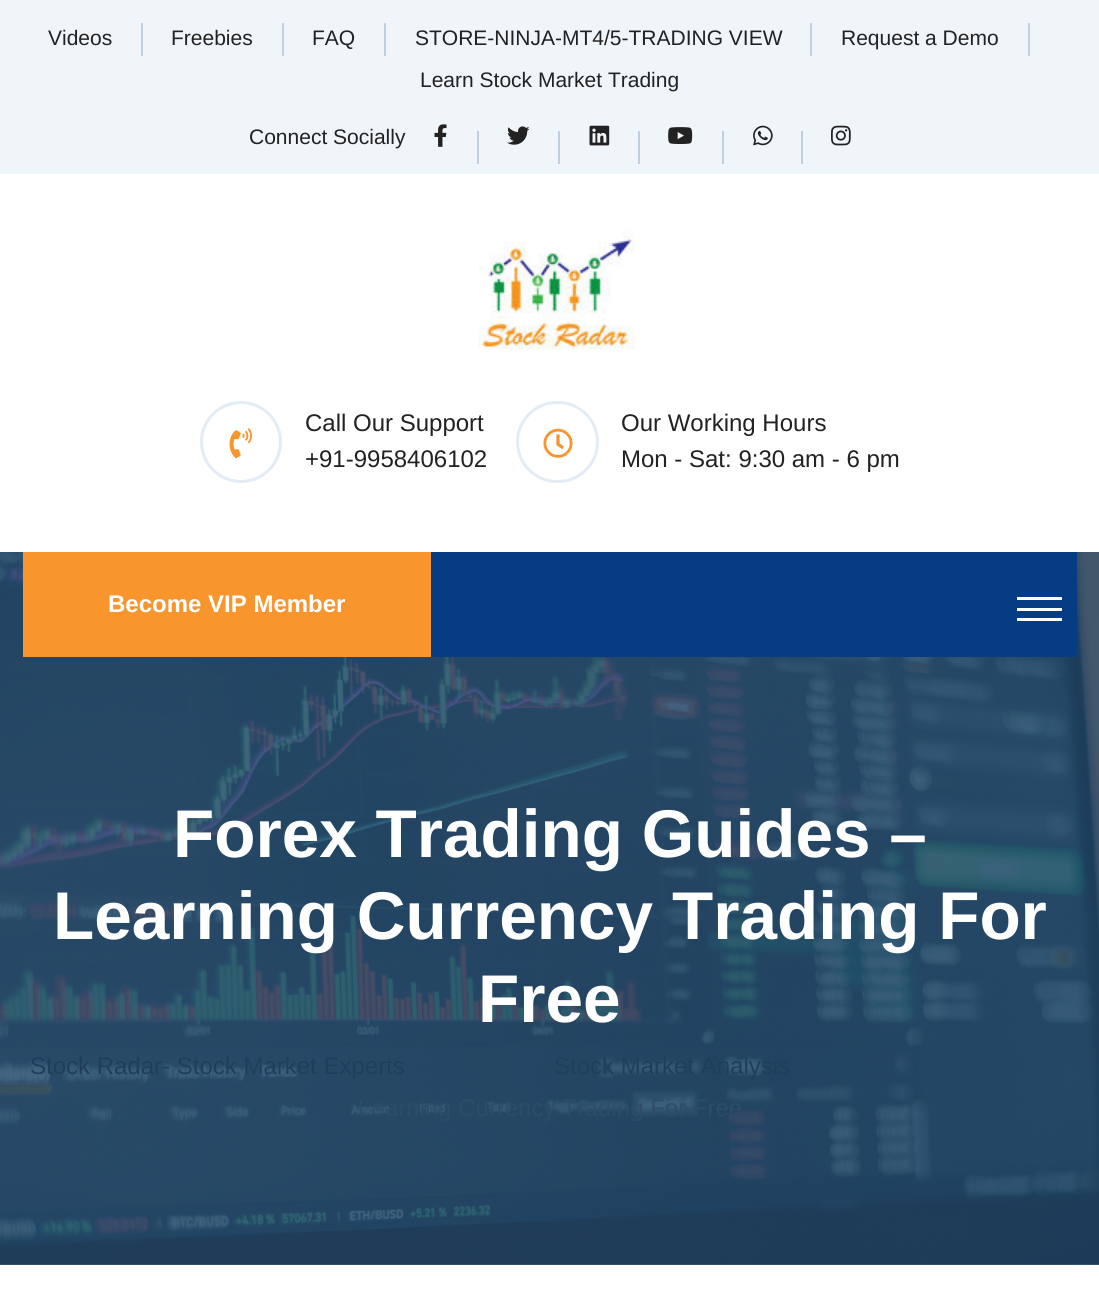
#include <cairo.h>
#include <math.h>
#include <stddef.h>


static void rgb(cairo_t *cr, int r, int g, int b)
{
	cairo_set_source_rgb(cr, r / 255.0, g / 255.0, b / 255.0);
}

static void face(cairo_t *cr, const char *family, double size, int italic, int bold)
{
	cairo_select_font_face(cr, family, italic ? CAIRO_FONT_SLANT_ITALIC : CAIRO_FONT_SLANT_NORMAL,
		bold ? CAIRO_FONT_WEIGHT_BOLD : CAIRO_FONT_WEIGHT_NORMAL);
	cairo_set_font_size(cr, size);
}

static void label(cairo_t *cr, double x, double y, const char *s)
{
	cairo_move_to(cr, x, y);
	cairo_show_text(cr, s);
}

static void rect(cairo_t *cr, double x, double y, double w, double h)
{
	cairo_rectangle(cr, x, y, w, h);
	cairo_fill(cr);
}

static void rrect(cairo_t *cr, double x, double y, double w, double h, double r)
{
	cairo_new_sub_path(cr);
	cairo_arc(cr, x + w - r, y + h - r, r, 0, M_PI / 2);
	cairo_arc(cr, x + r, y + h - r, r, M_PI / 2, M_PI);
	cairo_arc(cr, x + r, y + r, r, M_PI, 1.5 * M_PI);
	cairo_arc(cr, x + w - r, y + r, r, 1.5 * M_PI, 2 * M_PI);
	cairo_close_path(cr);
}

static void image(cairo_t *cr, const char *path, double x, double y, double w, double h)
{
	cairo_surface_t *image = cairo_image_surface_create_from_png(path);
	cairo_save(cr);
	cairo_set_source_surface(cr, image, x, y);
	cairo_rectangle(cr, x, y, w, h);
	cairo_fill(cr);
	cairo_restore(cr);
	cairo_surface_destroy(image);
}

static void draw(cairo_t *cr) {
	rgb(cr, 255, 255, 255);
	cairo_paint(cr);
	rgb(cr, 77, 107, 135);
	rect(cr, 0, 1264, 1099, 1);
	rgb(cr, 240, 245, 249);
	rect(cr, 0, 0, 1099, 174);
	face(cr, "Arimo", 21, 0, 0);
	rgb(cr, 34, 34, 34);
	label(cr, 48, 45, "Videos");
	rgb(cr, 193, 208, 225);
	rect(cr, 141, 23, 2, 33);
	rgb(cr, 34, 34, 34);
	label(cr, 171, 45, "Freebies");
	rgb(cr, 193, 208, 225);
	rect(cr, 282, 23, 2, 33);
	rgb(cr, 34, 34, 34);
	label(cr, 312, 45, "FAQ");
	rgb(cr, 193, 208, 225);
	rect(cr, 384, 23, 2, 33);
	rgb(cr, 34, 34, 34);
	label(cr, 415, 45, "STORE-NINJA-MT4/5-TRADING VIEW");
	rgb(cr, 193, 208, 225);
	rect(cr, 810, 23, 2, 33);
	rgb(cr, 34, 34, 34);
	label(cr, 841, 45, "Request a Demo");
	rgb(cr, 193, 208, 225);
	rect(cr, 1028, 23, 2, 33);
	rgb(cr, 34, 34, 34);
	label(cr, 420, 87, "Learn Stock Market Trading");
	label(cr, 249, 144, "Connect Socially");
	image(cr, "image0.png", 434, 124, 13, 23);
	rgb(cr, 193, 208, 225);
	rect(cr, 477, 131, 2, 33);
	image(cr, "image1.png", 507, 126, 23, 19);
	rect(cr, 558, 131, 2, 33);
	image(cr, "image2.png", 589, 125, 21, 21);
	rect(cr, 638, 131, 2, 33);
	image(cr, "image3.png", 668, 127, 25, 17);
	rect(cr, 722, 131, 2, 33);
	image(cr, "image4.png", 753, 125, 20, 21);
	rect(cr, 801, 131, 2, 33);
	image(cr, "image5.png", 831, 125, 20, 21);
	image(cr, "image6.png", 478, 229, 157, 121);
	cairo_arc(cr, 241, 442, 39.5, 0, 2 * M_PI);
	rgb(cr, 227, 235, 245);
	cairo_set_line_width(cr, 3);
	cairo_stroke(cr);
	image(cr, "image7.png", 229, 428, 24, 31);
	face(cr, "Arimo", 24, 0, 0);
	rgb(cr, 34, 34, 34);
	label(cr, 305, 431, "Call Our Support");
	label(cr, 305, 467, "+91-9958406102");
	rrect(cr, 517.5, 402.5, 80, 79, 39.5);
	rgb(cr, 227, 235, 245);
	cairo_stroke(cr);
	image(cr, "image8.png", 543, 428, 30, 30);
	rgb(cr, 34, 34, 34);
	label(cr, 621, 431, "Our Working Hours");
	label(cr, 621, 467, "Mon - Sat: 9:30 am - 6 pm");
	image(cr, "image9.png", 0, 552, 1099, 713);
	rgb(cr, 6, 60, 131);
	rect(cr, 431, 552, 646, 105);
	rgb(cr, 248, 149, 44);
	rect(cr, 23, 552, 408, 105);
	face(cr, "Arimo", 24, 0, 1);
	rgb(cr, 255, 255, 255);
	label(cr, 108, 612, "Become VIP Member");
	rect(cr, 1017, 597, 45, 3);
	rect(cr, 1017, 608, 45, 3);
	rect(cr, 1017, 618, 45, 3);
	face(cr, "Arimo", 67.5, 0, 1);
	label(cr, 173, 857, "Forex Trading Guides –");
	label(cr, 53, 939, "Learning Currency Trading For");
	label(cr, 478, 1022, "Free");
	face(cr, "Arimo", 24, 0, 0);
	rgb(cr, 32, 62, 92);
	label(cr, 30, 1074, "Stock Radar- Stock Market Experts");
	label(cr, 554, 1074, "Stock Market Analysis");
	rgb(cr, 46, 76, 104);
	label(cr, 358, 1116, "Learning Currency Trading For Free");
}

int main(void) {
	cairo_surface_t *surface = cairo_image_surface_create(CAIRO_FORMAT_RGB24, 1099, 1309);
	cairo_t *cr = cairo_create(surface);
	cairo_font_options_t *options = cairo_font_options_create();
	cairo_font_options_set_hint_metrics(options, CAIRO_HINT_METRICS_OFF);
	cairo_font_options_set_hint_style(options, CAIRO_HINT_STYLE_NONE);
	cairo_set_font_options(cr, options);
	cairo_set_miter_limit(cr, 4);
	draw(cr);
	cairo_surface_write_to_png(surface, "render.png");
	cairo_font_options_destroy(options);
	cairo_destroy(cr);
	cairo_surface_destroy(surface);
	return 0;
}
